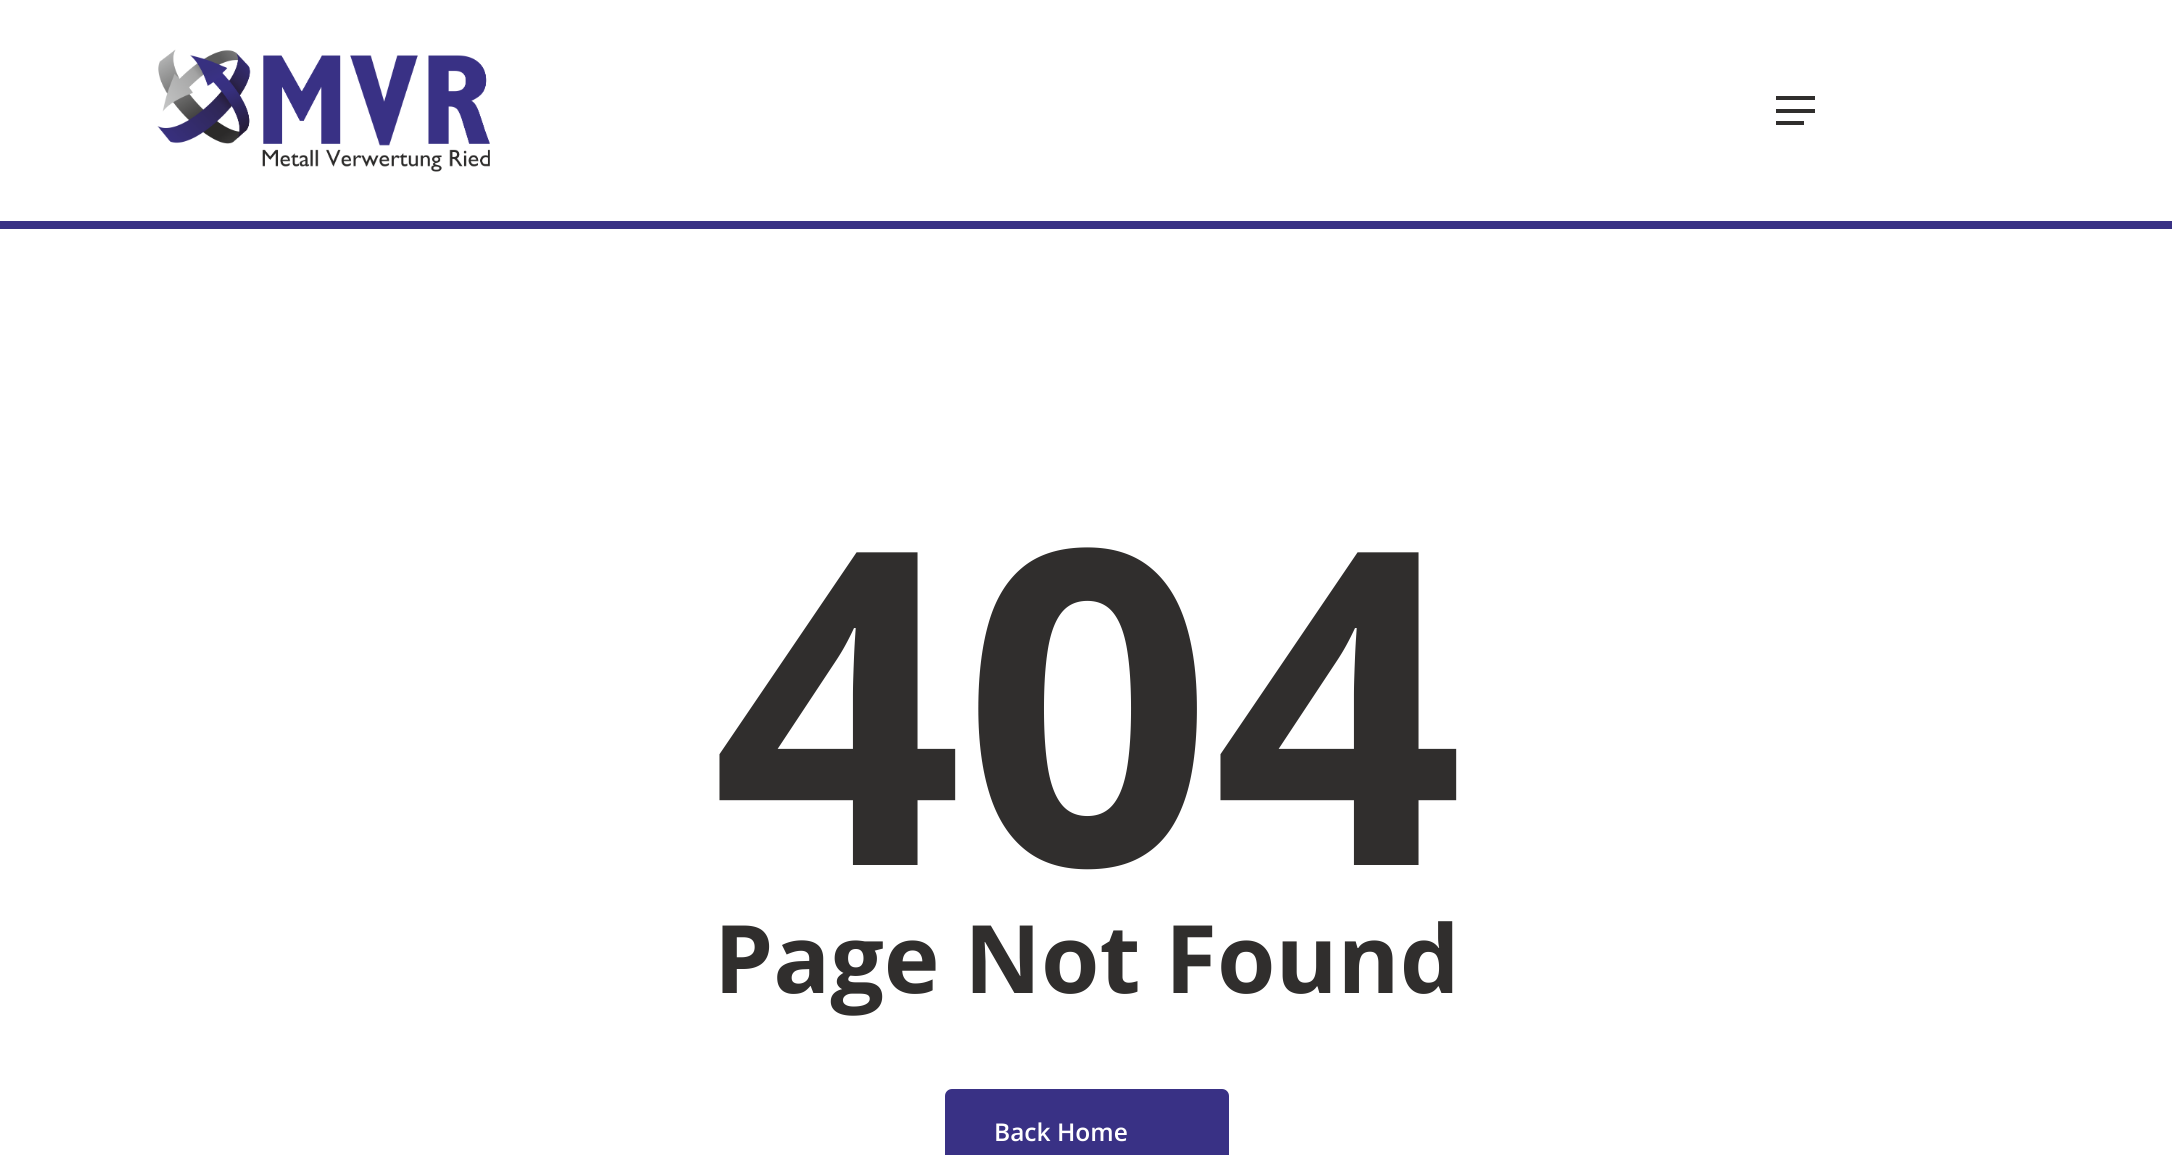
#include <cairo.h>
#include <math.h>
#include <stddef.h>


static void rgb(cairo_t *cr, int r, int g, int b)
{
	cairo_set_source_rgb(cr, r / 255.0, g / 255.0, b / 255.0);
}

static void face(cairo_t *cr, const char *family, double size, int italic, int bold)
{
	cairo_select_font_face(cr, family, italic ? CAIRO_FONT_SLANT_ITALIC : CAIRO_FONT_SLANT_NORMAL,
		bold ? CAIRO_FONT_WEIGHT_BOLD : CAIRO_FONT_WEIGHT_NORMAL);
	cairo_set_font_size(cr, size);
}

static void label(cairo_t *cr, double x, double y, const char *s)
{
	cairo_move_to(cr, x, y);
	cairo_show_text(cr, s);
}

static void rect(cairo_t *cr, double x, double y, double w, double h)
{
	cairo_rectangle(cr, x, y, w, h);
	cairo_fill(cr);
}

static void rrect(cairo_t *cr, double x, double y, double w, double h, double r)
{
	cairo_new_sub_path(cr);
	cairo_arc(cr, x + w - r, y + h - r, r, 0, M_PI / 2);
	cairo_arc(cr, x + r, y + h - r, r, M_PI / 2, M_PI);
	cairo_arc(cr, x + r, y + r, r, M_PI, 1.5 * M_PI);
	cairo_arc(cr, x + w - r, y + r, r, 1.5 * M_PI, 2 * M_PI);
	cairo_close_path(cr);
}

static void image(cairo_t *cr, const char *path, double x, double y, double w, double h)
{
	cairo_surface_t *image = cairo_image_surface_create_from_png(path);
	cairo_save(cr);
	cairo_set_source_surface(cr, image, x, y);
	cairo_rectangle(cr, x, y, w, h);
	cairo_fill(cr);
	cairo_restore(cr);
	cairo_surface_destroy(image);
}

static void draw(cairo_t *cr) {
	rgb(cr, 255, 255, 255);
	cairo_paint(cr);
	rgb(cr, 57, 49, 133);
	rect(cr, 0, 221, 2172, 8);
	image(cr, "image0.png", 157, 49, 333, 123);
	rgb(cr, 48, 46, 45);
	rect(cr, 1776, 96, 39, 4);
	rect(cr, 1776, 121, 28, 4);
	rect(cr, 1776, 109, 39, 4);
	face(cr, "Open Sans", 438, 0, 1);
	label(cr, 712, 865, "404");
	face(cr, "Open Sans", 94.5, 0, 1);
	label(cr, 714, 993, "Page Not Found");
	rgb(cr, 57, 49, 133);
	rrect(cr, 945, 1089, 284, 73, 7);
	cairo_fill(cr);
	face(cr, "Open Sans SemiBold", 24.5, 0, 0);
	rgb(cr, 255, 255, 255);
	label(cr, 994, 1141, "Back Home");
}

int main(void) {
	cairo_surface_t *surface = cairo_image_surface_create(CAIRO_FORMAT_RGB24, 2172, 1155);
	cairo_t *cr = cairo_create(surface);
	cairo_font_options_t *options = cairo_font_options_create();
	cairo_font_options_set_hint_metrics(options, CAIRO_HINT_METRICS_OFF);
	cairo_font_options_set_hint_style(options, CAIRO_HINT_STYLE_NONE);
	cairo_set_font_options(cr, options);
	cairo_set_miter_limit(cr, 4);
	draw(cr);
	cairo_surface_write_to_png(surface, "render.png");
	cairo_font_options_destroy(options);
	cairo_destroy(cr);
	cairo_surface_destroy(surface);
	return 0;
}
